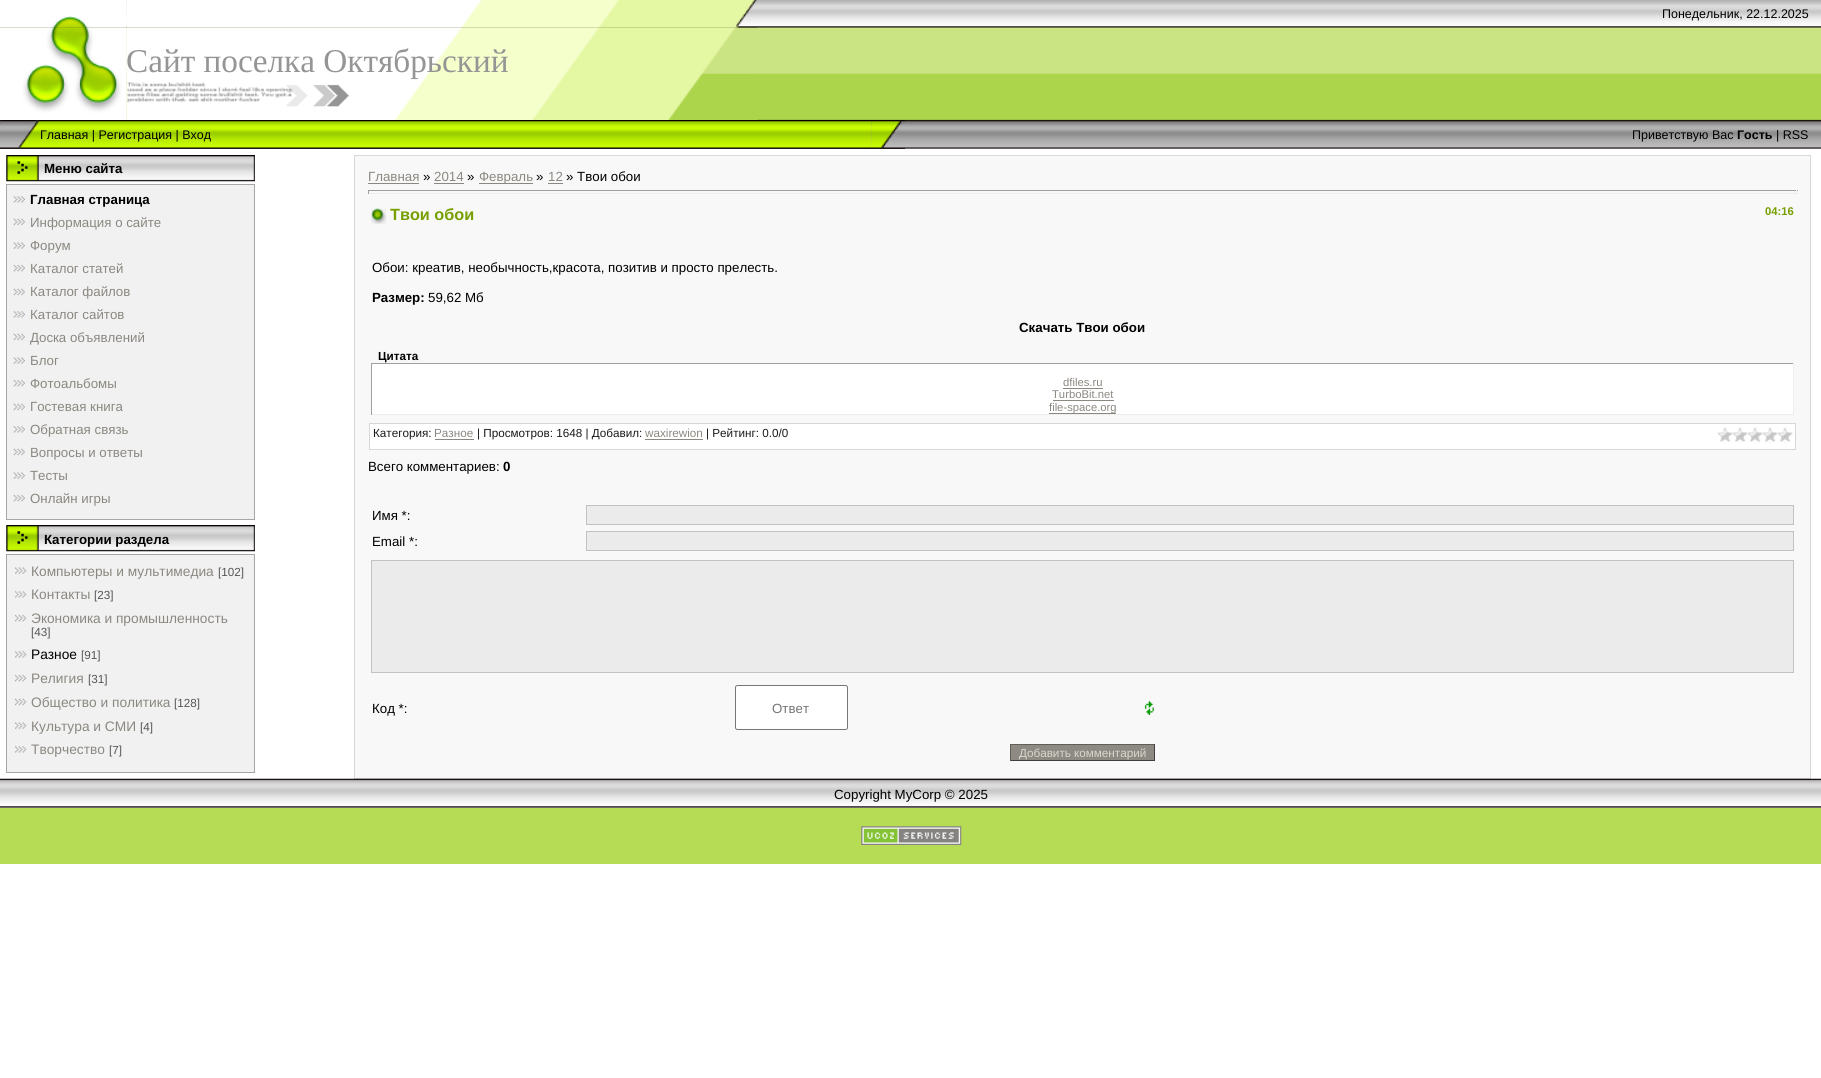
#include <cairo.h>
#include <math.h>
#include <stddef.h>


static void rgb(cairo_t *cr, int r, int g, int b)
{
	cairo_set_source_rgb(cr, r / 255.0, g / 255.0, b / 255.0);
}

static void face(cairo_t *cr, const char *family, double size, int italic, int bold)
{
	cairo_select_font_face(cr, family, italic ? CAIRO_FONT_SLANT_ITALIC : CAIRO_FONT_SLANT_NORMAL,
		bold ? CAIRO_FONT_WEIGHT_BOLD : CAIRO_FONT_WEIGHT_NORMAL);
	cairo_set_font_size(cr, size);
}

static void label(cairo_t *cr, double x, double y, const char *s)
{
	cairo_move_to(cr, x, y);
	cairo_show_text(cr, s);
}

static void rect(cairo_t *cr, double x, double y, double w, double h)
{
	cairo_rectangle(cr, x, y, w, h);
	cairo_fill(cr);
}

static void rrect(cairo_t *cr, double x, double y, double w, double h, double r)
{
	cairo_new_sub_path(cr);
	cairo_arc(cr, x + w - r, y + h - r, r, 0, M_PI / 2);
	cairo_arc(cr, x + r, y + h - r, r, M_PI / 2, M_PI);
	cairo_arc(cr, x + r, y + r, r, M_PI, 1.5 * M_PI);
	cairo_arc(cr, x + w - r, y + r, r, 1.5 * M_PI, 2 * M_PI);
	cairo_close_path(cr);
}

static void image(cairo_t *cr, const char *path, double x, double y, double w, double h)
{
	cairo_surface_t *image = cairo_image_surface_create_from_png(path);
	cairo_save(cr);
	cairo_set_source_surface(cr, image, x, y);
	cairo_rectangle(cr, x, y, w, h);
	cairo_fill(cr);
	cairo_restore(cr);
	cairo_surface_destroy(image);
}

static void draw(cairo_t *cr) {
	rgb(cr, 255, 255, 255);
	cairo_paint(cr);
	image(cr, "image0.png", 0, 0, 1821, 149);
	image(cr, "image4.png", 126, 27, 632, 93);
	image(cr, "image1.png", 0, 0, 127, 28);
	image(cr, "image2.png", 126, 0, 632, 28);
	face(cr, "Liberation Sans", 12.5, 0, 0);
	rgb(cr, 0, 0, 0);
	label(cr, 1662, 18, "Понедельник, 22.12.2025");
	image(cr, "image3.png", 0, 27, 127, 93);
	face(cr, "Liberation Serif", 33.25, 0, 0);
	rgb(cr, 150, 149, 149);
	label(cr, 126, 72, "Сайт поселка Октябрьский");
	image(cr, "image5.png", 0, 120, 40, 29);
	image(cr, "image6.png", 40, 120, 832, 29);
	face(cr, "Liberation Sans", 12.5, 0, 0);
	rgb(cr, 0, 0, 0);
	label(cr, 40, 139, "Главная | Регистрация | Вход");
	image(cr, "image7.png", 871, 120, 34, 29);
	label(cr, 1632, 139, "Приветствую Вас");
	face(cr, "Liberation Sans", 12.5, 0, 1);
	label(cr, 1737, 139, "Гость");
	face(cr, "Liberation Sans", 12.5, 0, 0);
	label(cr, 1776, 139, "| RSS");
	image(cr, "image8.png", 6, 155, 249, 27);
	face(cr, "Liberation Sans", 13.3, 0, 1);
	label(cr, 44, 173, "Меню сайта");
	rgb(cr, 241, 241, 241);
	cairo_rectangle(cr, 6.5, 184.5, 248, 335);
	cairo_fill_preserve(cr);
	rgb(cr, 167, 166, 166);
	cairo_set_line_width(cr, 1);
	cairo_stroke(cr);
	image(cr, "image9.png", 13, 196, 12, 7);
	rgb(cr, 0, 0, 0);
	label(cr, 30, 204, "Главная страница");
	image(cr, "image10.png", 13, 218, 12, 8);
	face(cr, "Liberation Sans", 13.3, 0, 0);
	rgb(cr, 139, 136, 129);
	label(cr, 30, 227, "Информация о сайте");
	image(cr, "image11.png", 13, 242, 12, 7);
	label(cr, 30, 250, "Форум");
	image(cr, "image12.png", 13, 264, 12, 8);
	label(cr, 30, 273, "Каталог статей");
	image(cr, "image10.png", 13, 288, 12, 8);
	label(cr, 30, 296, "Каталог файлов");
	image(cr, "image9.png", 13, 311, 12, 7);
	label(cr, 30, 319, "Каталог сайтов");
	image(cr, "image10.png", 13, 333, 12, 8);
	label(cr, 30, 342, "Доска объявлений");
	image(cr, "image11.png", 13, 357, 12, 7);
	label(cr, 30, 365, "Блог");
	image(cr, "image12.png", 13, 379, 12, 8);
	label(cr, 30, 388, "Фотоальбомы");
	image(cr, "image10.png", 13, 403, 12, 8);
	label(cr, 30, 411, "Гостевая книга");
	image(cr, "image9.png", 13, 426, 12, 7);
	label(cr, 30, 434, "Обратная связь");
	image(cr, "image10.png", 13, 448, 12, 8);
	label(cr, 30, 457, "Вопросы и ответы");
	image(cr, "image11.png", 13, 472, 12, 7);
	label(cr, 30, 480, "Тесты");
	image(cr, "image12.png", 13, 494, 12, 8);
	label(cr, 30, 503, "Онлайн игры");
	image(cr, "image8.png", 6, 525, 249, 27);
	face(cr, "Liberation Sans", 13.3, 0, 1);
	rgb(cr, 0, 0, 0);
	label(cr, 44, 544, "Категории раздела");
	rgb(cr, 241, 241, 241);
	cairo_rectangle(cr, 6.5, 554.5, 248, 218);
	cairo_fill_preserve(cr);
	rgb(cr, 167, 166, 166);
	cairo_stroke(cr);
	image(cr, "image13.png", 15, 567, 12, 7);
	face(cr, "Liberation Sans", 13.75, 0, 0);
	rgb(cr, 139, 136, 129);
	label(cr, 31, 576, "Компьютеры и мультимедиа");
	face(cr, "Liberation Sans", 11.7, 0, 0);
	rgb(cr, 85, 85, 85);
	label(cr, 218, 576, "[102]");
	image(cr, "image14.png", 15, 591, 12, 7);
	face(cr, "Liberation Sans", 13.75, 0, 0);
	rgb(cr, 139, 136, 129);
	label(cr, 31, 599, "Контакты");
	face(cr, "Liberation Sans", 11.7, 0, 0);
	rgb(cr, 85, 85, 85);
	label(cr, 94, 599, "[23]");
	image(cr, "image15.png", 15, 614, 12, 8);
	face(cr, "Liberation Sans", 13.75, 0, 0);
	rgb(cr, 139, 136, 129);
	label(cr, 31, 623, "Экономика и промышленность");
	face(cr, "Liberation Sans", 11.7, 0, 0);
	rgb(cr, 85, 85, 85);
	label(cr, 31, 636, "[43]");
	image(cr, "image14.png", 15, 651, 12, 7);
	face(cr, "Liberation Sans", 13.75, 0, 0);
	rgb(cr, 0, 0, 0);
	label(cr, 31, 659, "Разное");
	face(cr, "Liberation Sans", 11.7, 0, 0);
	rgb(cr, 85, 85, 85);
	label(cr, 81, 659, "[91]");
	image(cr, "image15.png", 15, 674, 12, 8);
	face(cr, "Liberation Sans", 13.75, 0, 0);
	rgb(cr, 139, 136, 129);
	label(cr, 31, 683, "Религия");
	face(cr, "Liberation Sans", 11.7, 0, 0);
	rgb(cr, 85, 85, 85);
	label(cr, 88, 683, "[31]");
	image(cr, "image16.png", 15, 698, 12, 8);
	face(cr, "Liberation Sans", 13.75, 0, 0);
	rgb(cr, 139, 136, 129);
	label(cr, 31, 707, "Общество и политика");
	face(cr, "Liberation Sans", 11.7, 0, 0);
	rgb(cr, 85, 85, 85);
	label(cr, 174, 707, "[128]");
	image(cr, "image13.png", 15, 722, 12, 7);
	face(cr, "Liberation Sans", 13.75, 0, 0);
	rgb(cr, 139, 136, 129);
	label(cr, 31, 731, "Культура и СМИ");
	face(cr, "Liberation Sans", 11.7, 0, 0);
	rgb(cr, 85, 85, 85);
	label(cr, 140, 731, "[4]");
	image(cr, "image14.png", 15, 746, 12, 7);
	face(cr, "Liberation Sans", 13.75, 0, 0);
	rgb(cr, 139, 136, 129);
	label(cr, 31, 754, "Творчество");
	face(cr, "Liberation Sans", 11.7, 0, 0);
	rgb(cr, 85, 85, 85);
	label(cr, 109, 754, "[7]");
	cairo_rectangle(cr, 354.5, 155.5, 1456, 623);
	rgb(cr, 215, 215, 215);
	cairo_stroke(cr);
	rgb(cr, 248, 248, 248);
	rect(cr, 355, 156, 1455, 622);
	face(cr, "Liberation Sans", 13.3, 0, 0);
	rgb(cr, 139, 136, 129);
	label(cr, 368, 181, "Главная");
	rect(cr, 368, 183, 51, 1);
	rgb(cr, 0, 0, 0);
	label(cr, 423, 181, "»");
	rgb(cr, 139, 136, 129);
	label(cr, 434, 181, "2014");
	rect(cr, 434, 183, 30, 1);
	rgb(cr, 0, 0, 0);
	label(cr, 467, 181, "»");
	rgb(cr, 139, 136, 129);
	rect(cr, 479, 183, 54, 1);
	label(cr, 479, 181, "Февраль");
	rgb(cr, 0, 0, 0);
	label(cr, 536, 181, "»");
	rgb(cr, 139, 136, 129);
	label(cr, 548, 181, "12");
	rect(cr, 548, 183, 15, 1);
	rgb(cr, 0, 0, 0);
	label(cr, 566, 181, "» Твои обои");
	rgb(cr, 159, 159, 159);
	rect(cr, 368, 190, 1430, 1);
	rgb(cr, 238, 238, 238);
	rect(cr, 1796, 190, 1, 4);
	rect(cr, 368, 193, 1430, 1);
	rgb(cr, 159, 159, 159);
	rect(cr, 368, 190, 1, 4);
	image(cr, "image17.png", 371, 208, 16, 16);
	face(cr, "Liberation Sans", 16.25, 0, 1);
	rgb(cr, 119, 159, 0);
	label(cr, 390, 220, "Твои обои");
	face(cr, "Liberation Sans", 11.25, 0, 1);
	label(cr, 1765, 215, "04:16");
	face(cr, "Liberation Sans", 13.3, 0, 0);
	rgb(cr, 0, 0, 0);
	label(cr, 372, 272, "Обои: креатив, необычность,красота, позитив и просто прелесть.");
	face(cr, "Liberation Sans", 13.3, 0, 1);
	label(cr, 372, 302, "Размер:");
	face(cr, "Liberation Sans", 13.3, 0, 0);
	label(cr, 428, 302, "59,62 Мб");
	face(cr, "Liberation Sans", 13.3, 0, 1);
	label(cr, 1019, 332, "Скачать Твои обои");
	face(cr, "Liberation Sans", 11.7, 0, 1);
	label(cr, 378, 360, "Цитата");
	rgb(cr, 255, 255, 255);
	rect(cr, 372, 364, 1421, 50);
	rgb(cr, 159, 159, 159);
	rect(cr, 371, 363, 1423, 1);
	rgb(cr, 238, 238, 238);
	rect(cr, 1793, 363, 1, 52);
	rect(cr, 371, 414, 1423, 1);
	rgb(cr, 159, 159, 159);
	rect(cr, 371, 363, 1, 52);
	face(cr, "Liberation Sans", 11.25, 0, 0);
	rgb(cr, 139, 136, 129);
	label(cr, 1063, 386, "dfiles.ru");
	rect(cr, 1063, 388, 40, 1);
	label(cr, 1052, 398, "TurboBit.net");
	rect(cr, 1053, 400, 61, 1);
	rect(cr, 1049, 413, 67, 1);
	label(cr, 1049, 411, "file-space.org");
	rgb(cr, 255, 255, 255);
	cairo_rectangle(cr, 369.5, 423.5, 1426, 26);
	cairo_fill_preserve(cr);
	rgb(cr, 215, 215, 215);
	cairo_stroke(cr);
	face(cr, "Liberation Sans", 11.7, 0, 0);
	rgb(cr, 26, 26, 26);
	label(cr, 373, 437, "Категория:");
	rgb(cr, 139, 136, 129);
	label(cr, 434, 437, "Разное");
	rect(cr, 435, 439, 39, 1);
	rgb(cr, 26, 26, 26);
	label(cr, 477, 437, "| Просмотров: 1648 | Добавил:");
	rgb(cr, 139, 136, 129);
	label(cr, 645, 437, "waxirewion");
	rect(cr, 645, 439, 58, 1);
	rgb(cr, 26, 26, 26);
	label(cr, 706, 437, "| Рейтинг: 0.0/0");
	image(cr, "image18.png", 1717, 427, 76, 16);
	face(cr, "Liberation Sans", 13.3, 0, 0);
	rgb(cr, 0, 0, 0);
	label(cr, 368, 471, "Всего комментариев:");
	face(cr, "Liberation Sans", 13.3, 0, 1);
	label(cr, 503, 471, "0");
	face(cr, "Liberation Sans", 13.3, 0, 0);
	label(cr, 372, 520, "Имя *:");
	rgb(cr, 235, 235, 235);
	cairo_rectangle(cr, 586.5, 505.5, 1207, 19);
	cairo_fill_preserve(cr);
	rgb(cr, 194, 194, 194);
	cairo_stroke(cr);
	rgb(cr, 0, 0, 0);
	label(cr, 372, 546, "Email *:");
	rgb(cr, 235, 235, 235);
	cairo_rectangle(cr, 586.5, 531.5, 1207, 19);
	cairo_fill_preserve(cr);
	rgb(cr, 194, 194, 194);
	cairo_stroke(cr);
	rgb(cr, 235, 235, 235);
	cairo_rectangle(cr, 371.5, 560.5, 1422, 112);
	cairo_fill_preserve(cr);
	rgb(cr, 194, 194, 194);
	cairo_stroke(cr);
	rgb(cr, 0, 0, 0);
	label(cr, 372, 713, "Код *:");
	rgb(cr, 255, 255, 255);
	rrect(cr, 735.5, 685.5, 112, 44, 2);
	cairo_fill_preserve(cr);
	rgb(cr, 118, 118, 118);
	cairo_stroke(cr);
	rgb(cr, 117, 117, 117);
	label(cr, 772, 713, "Ответ");
	image(cr, "image19.png", 1144, 701, 10, 14);
	rgb(cr, 141, 138, 131);
	rect(cr, 1011, 745, 143, 15);
	rgb(cr, 97, 94, 88);
	rect(cr, 1010, 744, 145, 1);
	rgb(cr, 65, 63, 59);
	rect(cr, 1154, 744, 1, 17);
	rect(cr, 1010, 760, 145, 1);
	rgb(cr, 97, 94, 88);
	rect(cr, 1010, 744, 1, 17);
	face(cr, "Liberation Sans", 11.7, 0, 0);
	rgb(cr, 218, 215, 204);
	label(cr, 1019, 757, "Добавить комментарий");
	rgb(cr, 204, 204, 204);
	rect(cr, 0, 807, 1821, 1);
	image(cr, "image20.png", 0, 778, 1821, 30);
	face(cr, "Liberation Sans", 13.3, 0, 0);
	rgb(cr, 0, 0, 0);
	label(cr, 834, 799, "Copyright MyCorp © 2025");
	rgb(cr, 181, 220, 84);
	rect(cr, 0, 808, 1821, 56);
	image(cr, "image21.png", 861, 826, 101, 19);
}

int main(void) {
	cairo_surface_t *surface = cairo_image_surface_create(CAIRO_FORMAT_RGB24, 1821, 1078);
	cairo_t *cr = cairo_create(surface);
	cairo_font_options_t *options = cairo_font_options_create();
	cairo_font_options_set_hint_metrics(options, CAIRO_HINT_METRICS_OFF);
	cairo_font_options_set_hint_style(options, CAIRO_HINT_STYLE_NONE);
	cairo_set_font_options(cr, options);
	cairo_set_miter_limit(cr, 4);
	draw(cr);
	cairo_surface_write_to_png(surface, "render.png");
	cairo_font_options_destroy(options);
	cairo_destroy(cr);
	cairo_surface_destroy(surface);
	return 0;
}
